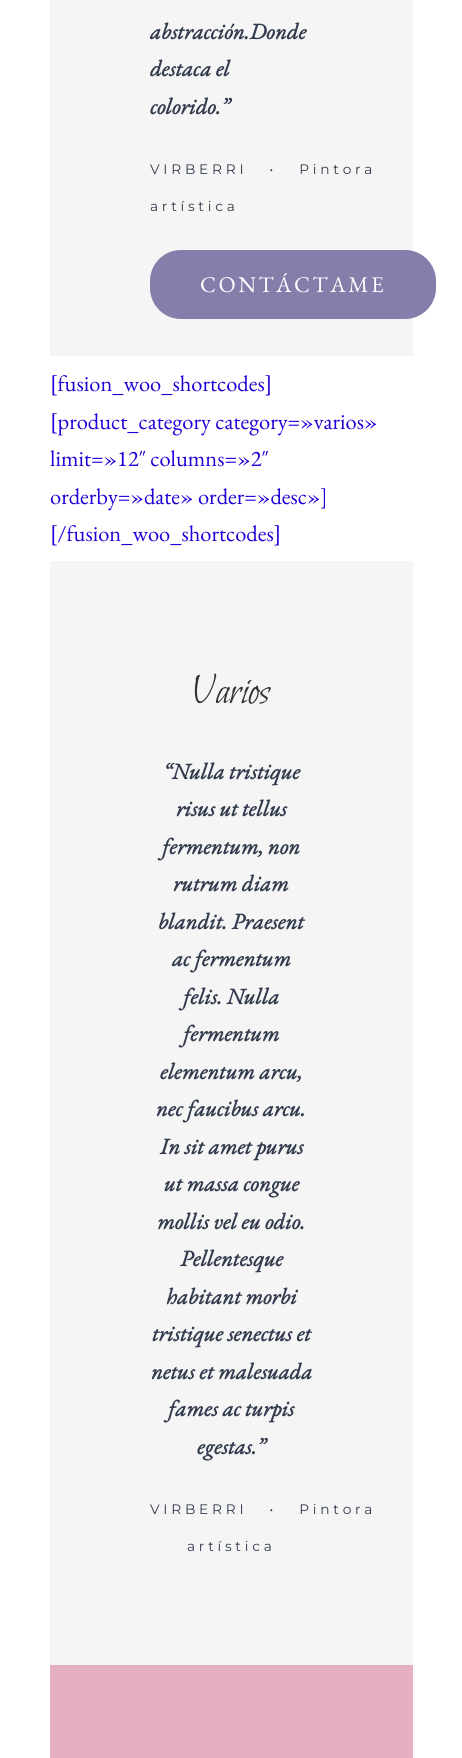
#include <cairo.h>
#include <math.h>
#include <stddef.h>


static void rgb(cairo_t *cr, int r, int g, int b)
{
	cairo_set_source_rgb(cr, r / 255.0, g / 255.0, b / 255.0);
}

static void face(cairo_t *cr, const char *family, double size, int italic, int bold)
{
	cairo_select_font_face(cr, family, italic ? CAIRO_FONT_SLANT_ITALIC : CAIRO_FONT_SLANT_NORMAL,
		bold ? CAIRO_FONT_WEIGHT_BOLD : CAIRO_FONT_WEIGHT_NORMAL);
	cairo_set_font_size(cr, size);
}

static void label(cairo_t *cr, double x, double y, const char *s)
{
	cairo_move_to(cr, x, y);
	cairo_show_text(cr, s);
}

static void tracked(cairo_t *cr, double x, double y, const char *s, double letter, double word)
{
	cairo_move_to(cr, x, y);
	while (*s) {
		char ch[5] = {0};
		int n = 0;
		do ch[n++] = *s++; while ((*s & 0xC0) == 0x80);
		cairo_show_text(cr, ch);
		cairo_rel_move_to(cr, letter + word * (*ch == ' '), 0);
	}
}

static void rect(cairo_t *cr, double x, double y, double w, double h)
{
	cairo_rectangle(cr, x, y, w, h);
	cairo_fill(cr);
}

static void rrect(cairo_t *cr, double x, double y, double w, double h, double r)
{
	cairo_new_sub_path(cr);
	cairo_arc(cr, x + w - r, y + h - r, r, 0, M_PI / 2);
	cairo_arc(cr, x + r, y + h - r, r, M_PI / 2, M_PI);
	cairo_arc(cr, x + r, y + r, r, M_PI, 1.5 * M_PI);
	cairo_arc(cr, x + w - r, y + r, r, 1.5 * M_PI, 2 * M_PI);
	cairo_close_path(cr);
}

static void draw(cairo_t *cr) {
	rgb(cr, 255, 255, 255);
	cairo_paint(cr);
	rgb(cr, 245, 245, 245);
	rect(cr, 50, 0, 363, 356);
	face(cr, "EB Garamond", 22.5, 1, 1);
	rgb(cr, 51, 60, 78);
	label(cr, 150, 39, "abstracción.Donde");
	label(cr, 150, 76, "destaca el");
	label(cr, 150, 114, "colorido.”");
	face(cr, "Montserrat Thin", 13.75, 0, 0);
	tracked(cr, 150, 174, "VIRBERRI   •   Pintora", 3.75, 0);
	tracked(cr, 150, 211, "artística", 3.75, 0);
	rgb(cr, 134, 125, 171);
	rrect(cr, 150, 250, 286, 69, 31);
	cairo_fill(cr);
	face(cr, "EB Garamond", 22.5, 0, 0);
	rgb(cr, 255, 255, 255);
	tracked(cr, 200, 292, "CONTÁCTAME", 2.5, 0);
	rgb(cr, 28, 0, 216);
	label(cr, 50, 391, "[fusion_woo_shortcodes]");
	label(cr, 50, 429, "[product_category category=»varios»");
	label(cr, 50, 466, "limit=»12″ columns=»2″");
	label(cr, 50, 504, "orderby=»date» order=»desc»]");
	label(cr, 50, 541, "[/fusion_woo_shortcodes]");
	rgb(cr, 245, 245, 245);
	rect(cr, 50, 561, 363, 1104);
	face(cr, "Bilbo", 42, 0, 0);
	rgb(cr, 51, 51, 51);
	label(cr, 192, 703, "Varios");
	face(cr, "EB Garamond", 22.5, 1, 1);
	rgb(cr, 51, 60, 78);
	label(cr, 163, 779, "“Nulla tristique");
	label(cr, 176, 816, "risus ut tellus");
	label(cr, 162, 854, "fermentum, non");
	label(cr, 173, 891, "rutrum diam");
	label(cr, 158, 929, "blandit. Praesent");
	label(cr, 172, 966, "ac fermentum");
	label(cr, 183, 1004, "felis. Nulla");
	label(cr, 183, 1041, "fermentum");
	label(cr, 160, 1079, "elementum arcu,");
	label(cr, 156, 1116, "nec faucibus arcu.");
	label(cr, 160, 1154, "In sit amet purus");
	label(cr, 164, 1191, "ut massa congue");
	label(cr, 157, 1229, "mollis vel eu odio.");
	label(cr, 180, 1266, "Pellentesque");
	label(cr, 166, 1304, "habitant morbi");
	label(cr, 152, 1341, "tristique senectus et");
	label(cr, 151, 1379, "netus et malesuada");
	label(cr, 168, 1416, "fames ac turpis");
	label(cr, 197, 1454, "egestas.”");
	face(cr, "Montserrat Thin", 13.75, 0, 0);
	tracked(cr, 150, 1514, "VIRBERRI   •   Pintora", 3.75, 0);
	tracked(cr, 187, 1551, "artística", 3.75, 0);
	rgb(cr, 230, 176, 196);
	rect(cr, 50, 1665, 363, 93);
}

int main(void) {
	cairo_surface_t *surface = cairo_image_surface_create(CAIRO_FORMAT_RGB24, 462, 1758);
	cairo_t *cr = cairo_create(surface);
	cairo_font_options_t *options = cairo_font_options_create();
	cairo_font_options_set_hint_metrics(options, CAIRO_HINT_METRICS_OFF);
	cairo_font_options_set_hint_style(options, CAIRO_HINT_STYLE_NONE);
	cairo_set_font_options(cr, options);
	cairo_set_miter_limit(cr, 4);
	draw(cr);
	cairo_surface_write_to_png(surface, "render.png");
	cairo_font_options_destroy(options);
	cairo_destroy(cr);
	cairo_surface_destroy(surface);
	return 0;
}
